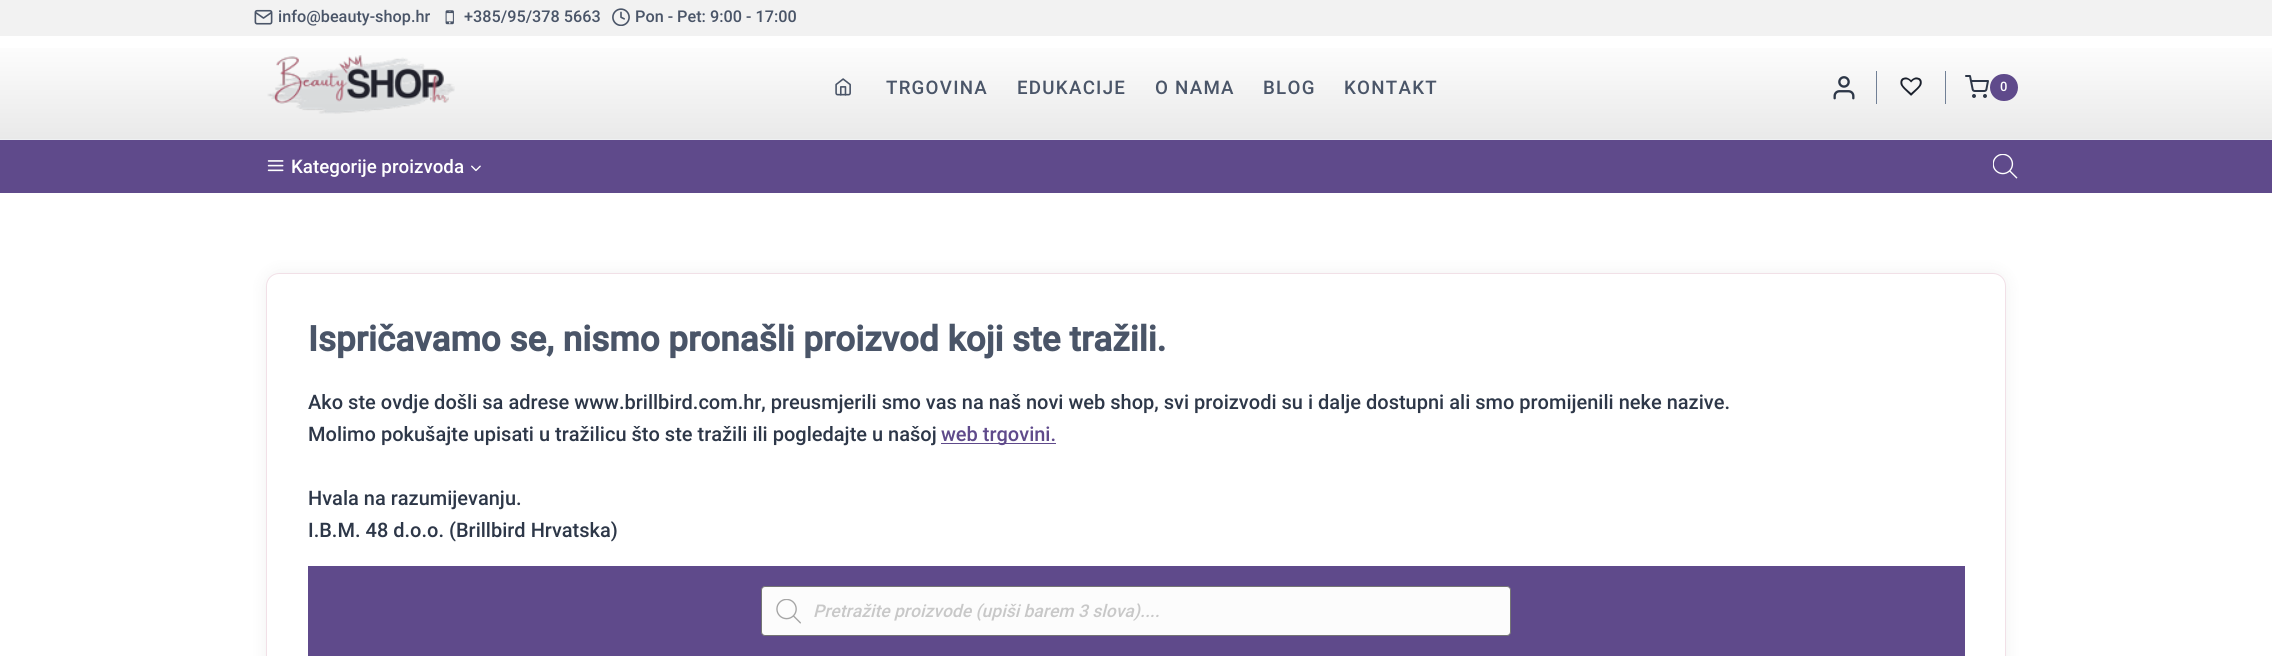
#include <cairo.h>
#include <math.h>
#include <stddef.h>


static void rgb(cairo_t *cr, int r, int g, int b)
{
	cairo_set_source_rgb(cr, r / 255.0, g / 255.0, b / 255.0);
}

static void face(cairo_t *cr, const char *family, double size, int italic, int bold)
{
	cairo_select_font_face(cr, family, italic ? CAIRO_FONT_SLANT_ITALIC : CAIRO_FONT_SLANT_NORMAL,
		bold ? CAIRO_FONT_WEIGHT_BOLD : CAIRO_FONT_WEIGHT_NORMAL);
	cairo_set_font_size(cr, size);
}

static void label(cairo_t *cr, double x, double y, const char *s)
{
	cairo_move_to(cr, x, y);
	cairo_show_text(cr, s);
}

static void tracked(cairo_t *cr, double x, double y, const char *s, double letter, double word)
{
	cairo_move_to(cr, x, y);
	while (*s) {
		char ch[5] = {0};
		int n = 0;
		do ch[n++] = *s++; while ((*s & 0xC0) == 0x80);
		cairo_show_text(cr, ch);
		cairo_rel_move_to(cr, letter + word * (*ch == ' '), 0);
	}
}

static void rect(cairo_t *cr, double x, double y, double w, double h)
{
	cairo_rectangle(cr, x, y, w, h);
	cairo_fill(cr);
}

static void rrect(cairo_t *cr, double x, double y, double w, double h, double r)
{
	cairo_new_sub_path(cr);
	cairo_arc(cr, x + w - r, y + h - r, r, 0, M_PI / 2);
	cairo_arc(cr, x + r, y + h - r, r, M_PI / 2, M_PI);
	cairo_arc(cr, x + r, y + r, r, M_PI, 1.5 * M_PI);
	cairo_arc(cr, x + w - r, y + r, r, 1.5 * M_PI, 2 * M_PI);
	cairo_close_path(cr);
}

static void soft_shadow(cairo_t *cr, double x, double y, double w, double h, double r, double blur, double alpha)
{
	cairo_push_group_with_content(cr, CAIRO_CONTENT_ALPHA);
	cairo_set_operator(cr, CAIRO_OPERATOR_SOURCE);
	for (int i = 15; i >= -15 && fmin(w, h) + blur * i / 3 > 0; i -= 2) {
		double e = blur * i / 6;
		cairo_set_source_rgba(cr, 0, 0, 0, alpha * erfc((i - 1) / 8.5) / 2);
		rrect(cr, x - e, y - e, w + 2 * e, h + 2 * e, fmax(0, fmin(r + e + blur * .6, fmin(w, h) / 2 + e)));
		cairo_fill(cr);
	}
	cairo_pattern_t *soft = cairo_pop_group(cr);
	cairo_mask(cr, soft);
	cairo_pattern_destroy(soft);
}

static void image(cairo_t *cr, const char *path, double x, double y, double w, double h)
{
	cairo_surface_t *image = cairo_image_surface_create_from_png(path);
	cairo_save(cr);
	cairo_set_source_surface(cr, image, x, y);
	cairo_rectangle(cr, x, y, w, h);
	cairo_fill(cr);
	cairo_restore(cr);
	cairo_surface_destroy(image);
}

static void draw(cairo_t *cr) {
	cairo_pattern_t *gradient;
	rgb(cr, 255, 255, 255);
	cairo_paint(cr);
	rgb(cr, 242, 242, 242);
	rect(cr, 0, 0, 2272, 36);
	image(cr, "image0.png", 254, 9, 19, 16);
	face(cr, "Roboto Medium", 16.25, 0, 0);
	rgb(cr, 74, 85, 104);
	label(cr, 278, 22, "info@beauty-shop.hr");
	image(cr, "image1.png", 445, 10, 9, 15);
	label(cr, 464, 22, "+385/95/378 5663");
	image(cr, "image2.png", 612, 8, 18, 18);
	label(cr, 635, 22, "Pon - Pet: 9:00 - 17:00");
	gradient = cairo_pattern_create_linear(1136, 36, 1136, 139);
	cairo_pattern_add_color_stop_rgba(gradient, 0, 1, 1, 1, 1);
	cairo_pattern_add_color_stop_rgba(gradient, 1, 0.914, 0.914, 0.914, 1);
	cairo_set_source(cr, gradient);
	cairo_pattern_destroy(gradient);
	rect(cr, 0, 48, 2272, 91);
	rgb(cr, 239, 241, 243);
	rect(cr, 0, 139, 2272, 1);
	image(cr, "image3.png", 267, 55, 188, 59);
	image(cr, "image4.png", 835, 78, 16, 18);
	face(cr, "Roboto Medium", 18.75, 0, 0);
	rgb(cr, 74, 85, 104);
	tracked(cr, 886, 94, "TRGOVINA", 1.25, 0);
	tracked(cr, 1017, 94, "EDUKACIJE", 1.25, 0);
	tracked(cr, 1155, 94, "O NAMA", 1.25, 0);
	tracked(cr, 1263, 94, "BLOG", 1.25, 0);
	tracked(cr, 1344, 94, "KONTAKT", 1.25, 0);
	image(cr, "image5.png", 1833, 76, 22, 24);
	rgb(cr, 113, 128, 150);
	rect(cr, 1876, 71, 1, 33);
	image(cr, "image6.png", 1900, 77, 22, 19);
	rect(cr, 1945, 71, 1, 33);
	image(cr, "image7.png", 1965, 75, 24, 23);
	rgb(cr, 95, 74, 139);
	rrect(cr, 1990, 74, 28, 27, 13.5);
	cairo_fill(cr);
	face(cr, "Roboto Medium", 13, 0, 0);
	rgb(cr, 255, 255, 255);
	label(cr, 2000, 91, "0");
	rgb(cr, 95, 74, 139);
	rect(cr, 0, 140, 2272, 53);
	image(cr, "image8.png", 267, 160, 17, 12);
	face(cr, "Roboto Medium", 18.75, 0, 0);
	rgb(cr, 255, 255, 255);
	label(cr, 291, 173, "Kategorije proizvoda");
	image(cr, "image9.png", 471, 165, 10, 7);
	image(cr, "image10.png", 1993, 154, 25, 25);
	rgb(cr, 0, 0, 0);
	soft_shadow(cr, 266, 273, 1740, 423, 13, 9, 0.06);
	rgb(cr, 255, 255, 255);
	rrect(cr, 266.5, 273.5, 1739, 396, 12.5);
	cairo_fill_preserve(cr);
	rgb(cr, 241, 224, 231);
	cairo_set_line_width(cr, 1);
	cairo_stroke(cr);
	face(cr, "Roboto", 35, 0, 1);
	rgb(cr, 74, 85, 104);
	label(cr, 308, 351, "Ispričavamo se, nismo pronašli proizvod koji ste tražili.");
	face(cr, "Roboto Medium", 20, 0, 0);
	rgb(cr, 45, 55, 72);
	label(cr, 308, 409, "Ako ste ovdje došli sa adrese www.brillbird.com.hr, preusmjerili smo vas na naš novi web shop, svi proizvodi su i dalje dostupni ali smo promijenili neke nazive.");
	label(cr, 308, 441, "Molimo pokušajte upisati u tražilicu što ste tražili ili pogledajte u našoj");
	rgb(cr, 95, 74, 139);
	rect(cr, 941, 443, 115, 1);
	label(cr, 941, 441, "web trgovini.");
	rgb(cr, 45, 55, 72);
	label(cr, 308, 505, "Hvala na razumijevanju.");
	label(cr, 308, 537, "I.B.M. 48 d.o.o. (Brillbird Hrvatska)");
	rgb(cr, 95, 74, 139);
	rect(cr, 308, 566, 1657, 90);
	rgb(cr, 252, 252, 252);
	rrect(cr, 761.5, 586.5, 749, 49, 3.5);
	cairo_fill_preserve(cr);
	rgb(cr, 117, 117, 117);
	cairo_stroke(cr);
	image(cr, "image11.png", 776, 599, 25, 25);
	face(cr, "Roboto Medium", 17.5, 1, 0);
	rgb(cr, 200, 200, 200);
	label(cr, 813, 617, "Pretražite proizvode (upiši barem 3 slova)....");
}

int main(void) {
	cairo_surface_t *surface = cairo_image_surface_create(CAIRO_FORMAT_RGB24, 2272, 656);
	cairo_t *cr = cairo_create(surface);
	cairo_font_options_t *options = cairo_font_options_create();
	cairo_font_options_set_hint_metrics(options, CAIRO_HINT_METRICS_OFF);
	cairo_font_options_set_hint_style(options, CAIRO_HINT_STYLE_NONE);
	cairo_set_font_options(cr, options);
	cairo_set_miter_limit(cr, 4);
	draw(cr);
	cairo_surface_write_to_png(surface, "render.png");
	cairo_font_options_destroy(options);
	cairo_destroy(cr);
	cairo_surface_destroy(surface);
	return 0;
}
